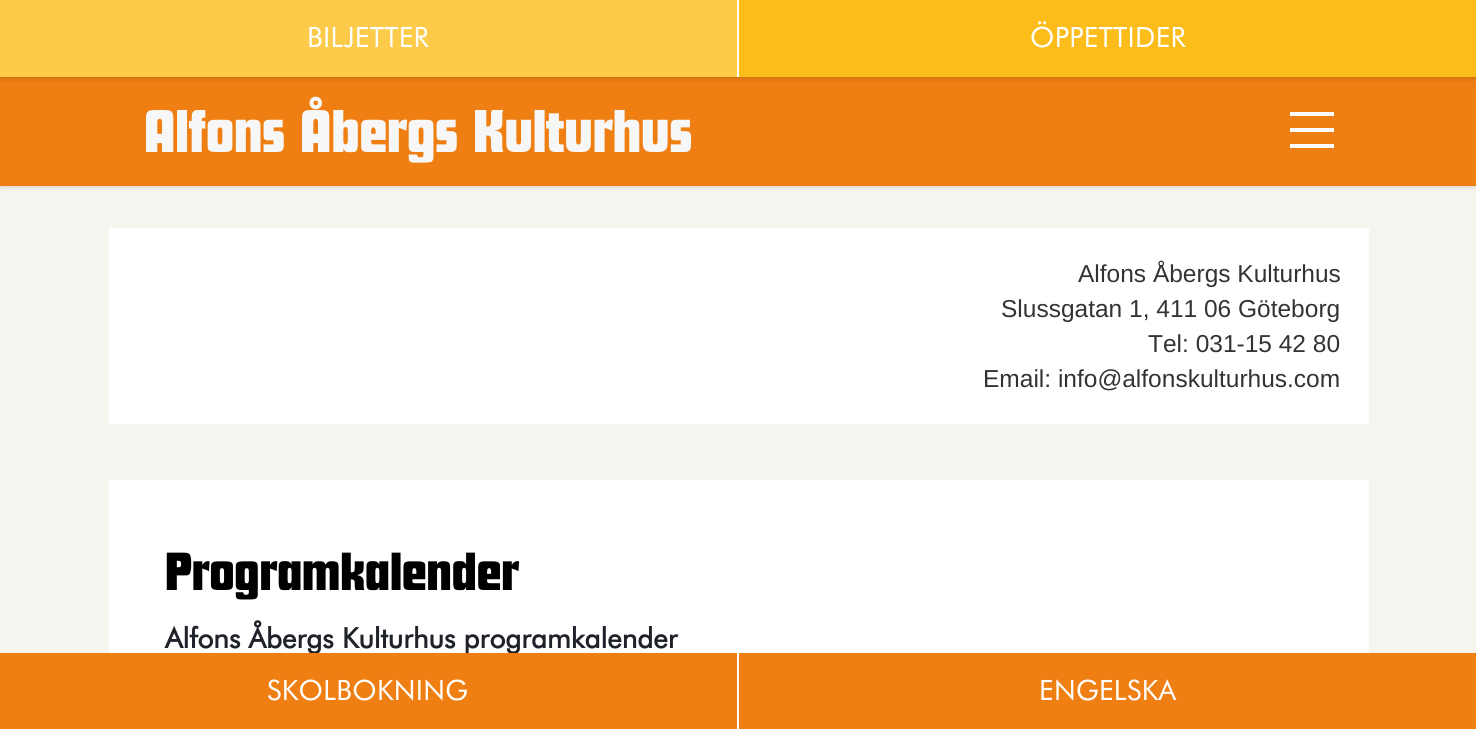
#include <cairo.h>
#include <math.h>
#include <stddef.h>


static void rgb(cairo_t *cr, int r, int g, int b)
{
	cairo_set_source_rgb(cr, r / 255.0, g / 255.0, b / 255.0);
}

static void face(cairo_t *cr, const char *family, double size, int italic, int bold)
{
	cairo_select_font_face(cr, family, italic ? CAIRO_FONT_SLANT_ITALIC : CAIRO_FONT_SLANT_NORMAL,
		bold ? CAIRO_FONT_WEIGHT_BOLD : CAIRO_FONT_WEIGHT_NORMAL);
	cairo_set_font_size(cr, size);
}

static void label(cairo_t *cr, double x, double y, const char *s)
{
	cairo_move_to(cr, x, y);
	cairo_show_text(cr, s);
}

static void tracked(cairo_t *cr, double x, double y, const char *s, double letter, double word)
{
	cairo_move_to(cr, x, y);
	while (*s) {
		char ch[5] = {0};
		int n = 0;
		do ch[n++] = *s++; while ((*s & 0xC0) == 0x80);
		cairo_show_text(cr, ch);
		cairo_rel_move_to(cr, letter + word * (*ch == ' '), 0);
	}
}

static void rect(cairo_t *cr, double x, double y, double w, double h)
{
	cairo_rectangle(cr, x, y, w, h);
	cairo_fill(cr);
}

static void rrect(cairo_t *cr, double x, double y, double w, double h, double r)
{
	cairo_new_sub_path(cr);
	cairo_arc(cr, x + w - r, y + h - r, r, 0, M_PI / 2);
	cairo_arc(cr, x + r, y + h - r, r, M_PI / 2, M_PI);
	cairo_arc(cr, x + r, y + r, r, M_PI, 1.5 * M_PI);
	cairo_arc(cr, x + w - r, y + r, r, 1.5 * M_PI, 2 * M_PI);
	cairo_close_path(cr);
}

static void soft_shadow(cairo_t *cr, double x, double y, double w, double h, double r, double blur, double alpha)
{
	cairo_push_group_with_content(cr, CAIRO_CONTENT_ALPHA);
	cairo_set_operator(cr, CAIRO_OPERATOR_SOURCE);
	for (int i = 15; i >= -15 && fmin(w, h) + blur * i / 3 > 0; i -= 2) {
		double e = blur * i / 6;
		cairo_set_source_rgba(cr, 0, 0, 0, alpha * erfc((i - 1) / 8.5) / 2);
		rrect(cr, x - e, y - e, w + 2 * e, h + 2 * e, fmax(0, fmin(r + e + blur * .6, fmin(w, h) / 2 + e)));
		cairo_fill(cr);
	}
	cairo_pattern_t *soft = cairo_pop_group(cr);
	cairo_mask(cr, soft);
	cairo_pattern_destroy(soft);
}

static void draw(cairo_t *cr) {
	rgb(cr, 246, 244, 239);
	cairo_paint(cr);
	rgb(cr, 0, 0, 0);
	soft_shadow(cr, 0, 79, 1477, 108, 0, 2.5, 0.14);
	rgb(cr, 240, 127, 19);
	rect(cr, 0, 77, 1476, 109);
	rgb(cr, 0, 0, 0);
	soft_shadow(cr, 0, 2, 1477, 77, 0, 2.5, 0.14);
	rgb(cr, 253, 202, 73);
	rect(cr, 0, 0, 737, 77);
	rgb(cr, 255, 255, 255);
	rect(cr, 737, 0, 2, 77);
	face(cr, "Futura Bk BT", 28, 0, 0);
	tracked(cr, 307, 47, "BILJETTER", 0.3, 0);
	rgb(cr, 252, 189, 27);
	rect(cr, 739, 0, 737, 77);
	rgb(cr, 255, 255, 255);
	tracked(cr, 1030, 47, "ÖPPETTIDER", 0.3, 0);
	face(cr, "Futura", 63, 0, 0);
	rgb(cr, 247, 247, 247);
	label(cr, 144, 152, "Alfons Åbergs Kulturhus");
	rgb(cr, 255, 255, 255);
	rect(cr, 1290, 112, 44, 4);
	rect(cr, 1290, 128, 44, 4);
	rect(cr, 1290, 144, 44, 4);
	rect(cr, 109, 228, 1260, 196);
	face(cr, "Liberation Sans", 24.5, 0, 0);
	rgb(cr, 51, 51, 51);
	label(cr, 1078, 282, "Alfons Åbergs Kulturhus");
	label(cr, 1001, 317, "Slussgatan 1, 411 06 Göteborg");
	label(cr, 1148, 352, "Tel: 031-15 42 80");
	label(cr, 983, 387, "Email: info@alfonskulturhus.com");
	rgb(cr, 255, 255, 255);
	rect(cr, 109, 480, 1260, 173);
	face(cr, "Futura", 56, 0, 0);
	rgb(cr, 0, 0, 0);
	label(cr, 165, 590, "Programkalender");
	face(cr, "Futura Bk BT", 28, 0, 1);
	rgb(cr, 31, 34, 40);
	label(cr, 165, 648, "Alfons Åbergs Kulturhus programkalender");
	rgb(cr, 240, 127, 19);
	rect(cr, 0, 653, 737, 76);
	rgb(cr, 255, 255, 255);
	rect(cr, 737, 653, 2, 76);
	face(cr, "Futura Bk BT", 28, 0, 0);
	tracked(cr, 267, 700, "SKOLBOKNING", 0.3, 0);
	rgb(cr, 240, 127, 19);
	rect(cr, 739, 653, 737, 76);
	rgb(cr, 255, 255, 255);
	tracked(cr, 1039, 700, "ENGELSKA", 0.3, 0);
}

int main(void) {
	cairo_surface_t *surface = cairo_image_surface_create(CAIRO_FORMAT_RGB24, 1476, 729);
	cairo_t *cr = cairo_create(surface);
	cairo_font_options_t *options = cairo_font_options_create();
	cairo_font_options_set_hint_metrics(options, CAIRO_HINT_METRICS_OFF);
	cairo_font_options_set_hint_style(options, CAIRO_HINT_STYLE_NONE);
	cairo_set_font_options(cr, options);
	cairo_set_miter_limit(cr, 4);
	draw(cr);
	cairo_surface_write_to_png(surface, "render.png");
	cairo_font_options_destroy(options);
	cairo_destroy(cr);
	cairo_surface_destroy(surface);
	return 0;
}
